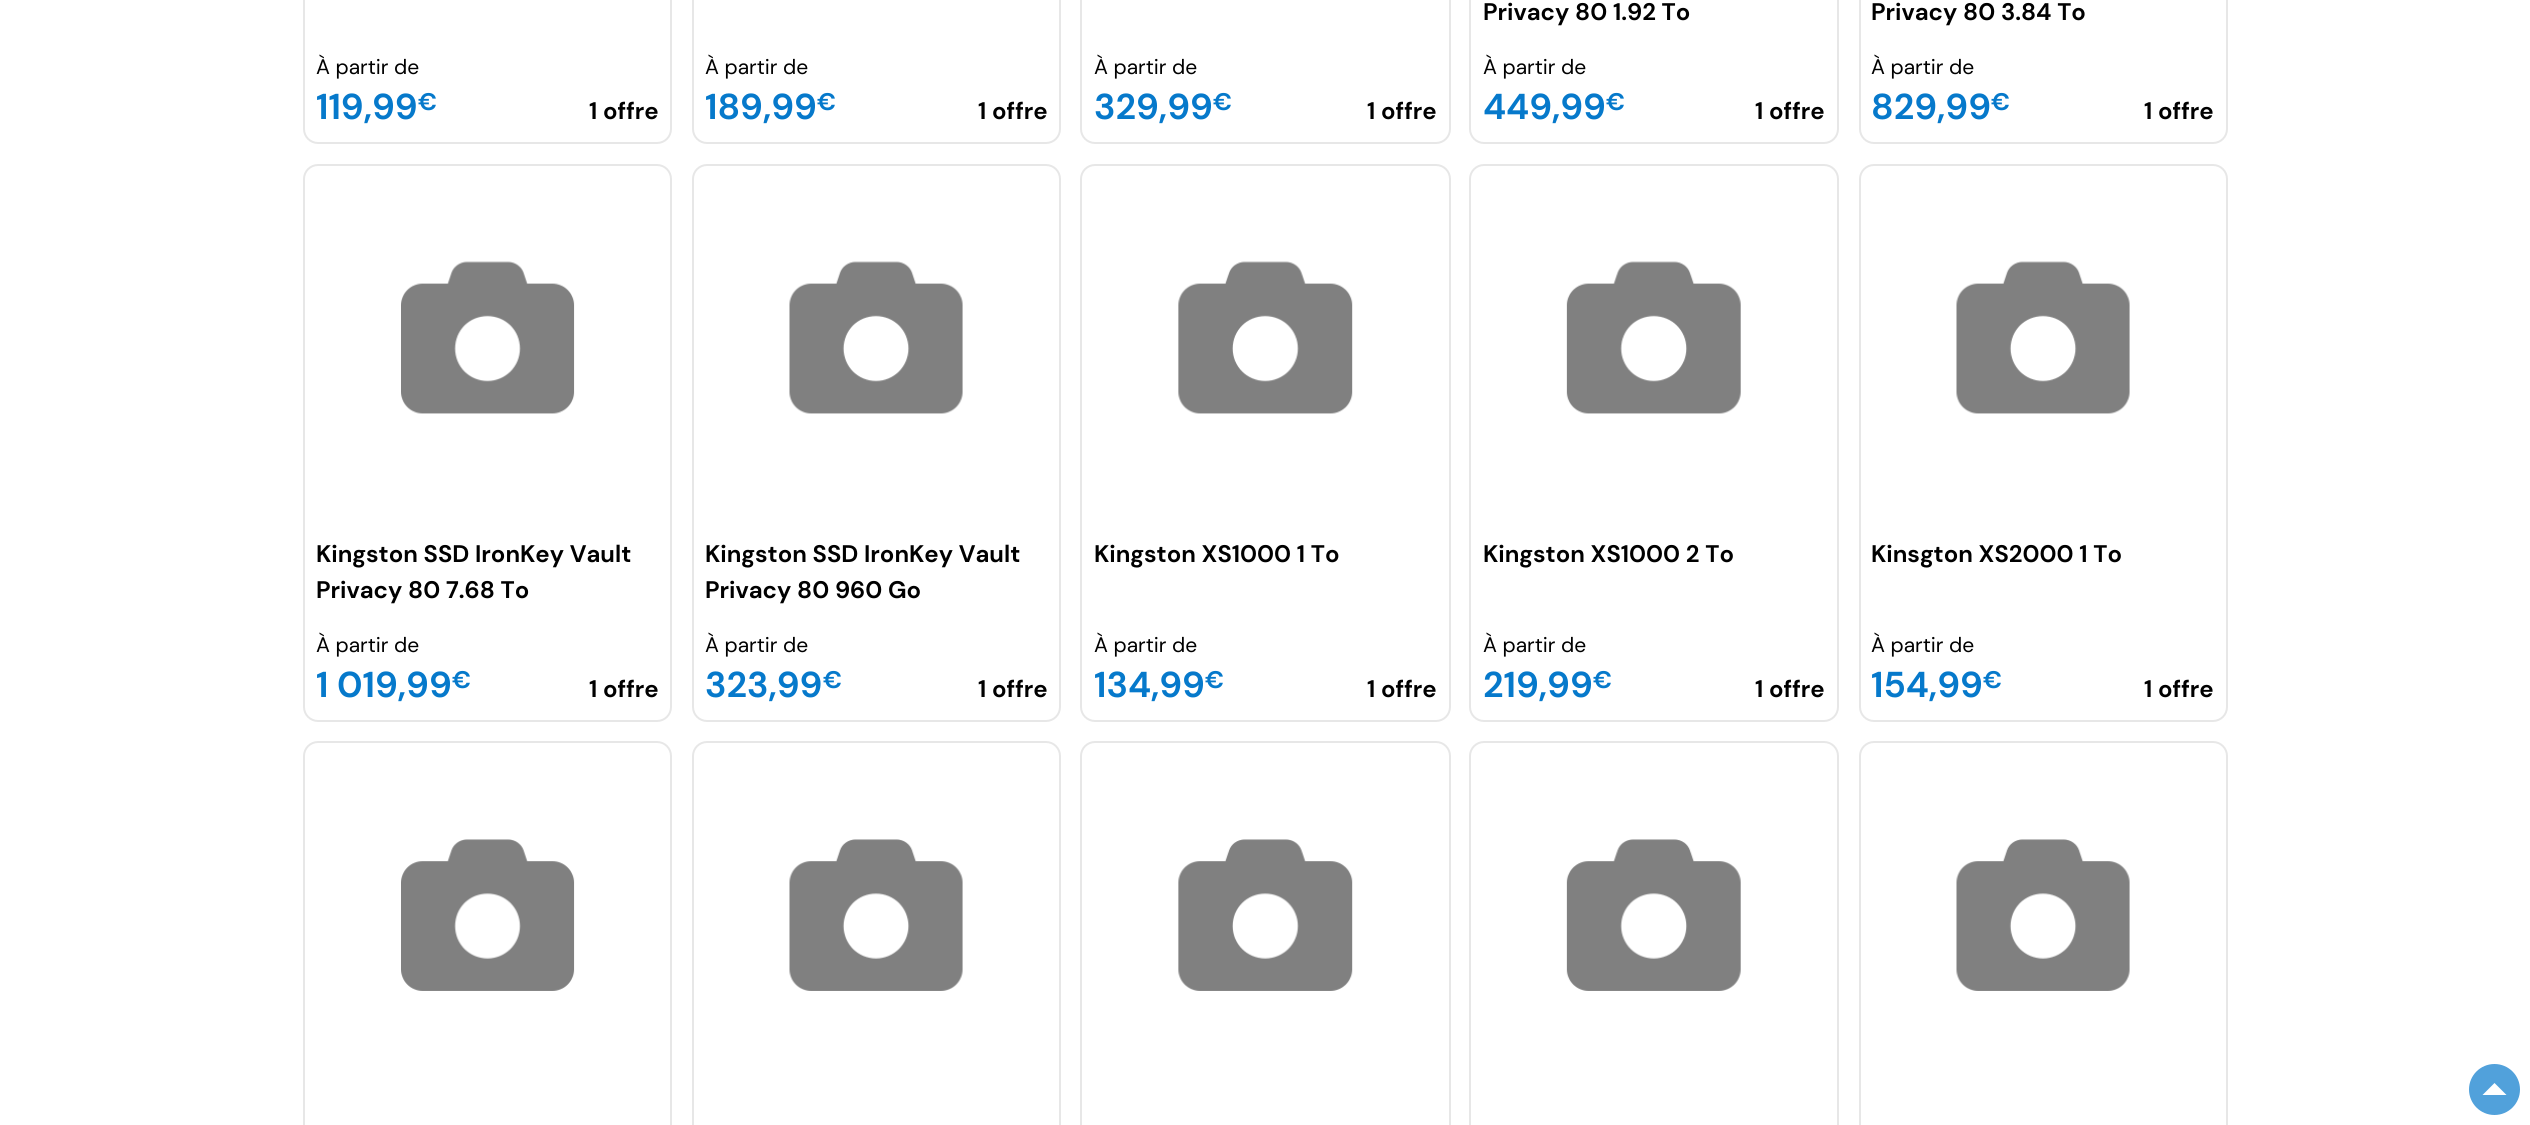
#include <cairo.h>
#include <math.h>
#include <stddef.h>


static void rgb(cairo_t *cr, int r, int g, int b)
{
	cairo_set_source_rgb(cr, r / 255.0, g / 255.0, b / 255.0);
}

static void face(cairo_t *cr, const char *family, double size, int italic, int bold)
{
	cairo_select_font_face(cr, family, italic ? CAIRO_FONT_SLANT_ITALIC : CAIRO_FONT_SLANT_NORMAL,
		bold ? CAIRO_FONT_WEIGHT_BOLD : CAIRO_FONT_WEIGHT_NORMAL);
	cairo_set_font_size(cr, size);
}

static void label(cairo_t *cr, double x, double y, const char *s)
{
	cairo_move_to(cr, x, y);
	cairo_show_text(cr, s);
}

static void rrect(cairo_t *cr, double x, double y, double w, double h, double r)
{
	cairo_new_sub_path(cr);
	cairo_arc(cr, x + w - r, y + h - r, r, 0, M_PI / 2);
	cairo_arc(cr, x + r, y + h - r, r, M_PI / 2, M_PI);
	cairo_arc(cr, x + r, y + r, r, M_PI, 1.5 * M_PI);
	cairo_arc(cr, x + w - r, y + r, r, 1.5 * M_PI, 2 * M_PI);
	cairo_close_path(cr);
}

static void image(cairo_t *cr, const char *path, double x, double y, double w, double h)
{
	cairo_surface_t *image = cairo_image_surface_create_from_png(path);
	cairo_save(cr);
	cairo_set_source_surface(cr, image, x, y);
	cairo_rectangle(cr, x, y, w, h);
	cairo_fill(cr);
	cairo_restore(cr);
	cairo_surface_destroy(image);
}

static void draw(cairo_t *cr) {
	rgb(cr, 255, 255, 255);
	cairo_paint(cr);
	rrect(cr, 304, -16, 367, 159, 14);
	rgb(cr, 231, 231, 231);
	cairo_stroke(cr);
	face(cr, "DM Sans", 21, 0, 0);
	rgb(cr, 0, 0, 0);
	label(cr, 316, 74, "À partir de");
	face(cr, "DM Sans", 36, 0, 1);
	rgb(cr, 6, 121, 203);
	label(cr, 316, 119, "119,99");
	face(cr, "DM Sans", 24, 0, 1);
	label(cr, 418, 110, "€");
	rgb(cr, 0, 0, 0);
	label(cr, 589, 119, "1 offre");
	rrect(cr, 693, -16, 367, 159, 14);
	rgb(cr, 231, 231, 231);
	cairo_stroke(cr);
	face(cr, "DM Sans", 21, 0, 0);
	rgb(cr, 0, 0, 0);
	label(cr, 705, 74, "À partir de");
	face(cr, "DM Sans", 36, 0, 1);
	rgb(cr, 6, 121, 203);
	label(cr, 705, 119, "189,99");
	face(cr, "DM Sans", 24, 0, 1);
	label(cr, 817, 110, "€");
	rgb(cr, 0, 0, 0);
	label(cr, 978, 119, "1 offre");
	rrect(cr, 1081, -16, 369, 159, 14);
	rgb(cr, 231, 231, 231);
	cairo_stroke(cr);
	face(cr, "DM Sans", 21, 0, 0);
	rgb(cr, 0, 0, 0);
	label(cr, 1094, 74, "À partir de");
	face(cr, "DM Sans", 36, 0, 1);
	rgb(cr, 6, 121, 203);
	label(cr, 1094, 119, "329,99");
	face(cr, "DM Sans", 24, 0, 1);
	label(cr, 1213, 110, "€");
	rgb(cr, 0, 0, 0);
	label(cr, 1367, 119, "1 offre");
	rrect(cr, 1470, -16, 368, 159, 14);
	rgb(cr, 231, 231, 231);
	cairo_stroke(cr);
	rgb(cr, 0, 0, 0);
	label(cr, 1483, 20, "Privacy 80 1.92 To");
	face(cr, "DM Sans", 21, 0, 0);
	label(cr, 1483, 74, "À partir de");
	face(cr, "DM Sans", 36, 0, 1);
	rgb(cr, 6, 121, 203);
	label(cr, 1483, 119, "449,99");
	face(cr, "DM Sans", 24, 0, 1);
	label(cr, 1606, 110, "€");
	rgb(cr, 0, 0, 0);
	label(cr, 1755, 119, "1 offre");
	rrect(cr, 1860, -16, 367, 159, 14);
	rgb(cr, 231, 231, 231);
	cairo_stroke(cr);
	rgb(cr, 0, 0, 0);
	label(cr, 1871, 20, "Privacy 80 3.84 To");
	face(cr, "DM Sans", 21, 0, 0);
	label(cr, 1871, 74, "À partir de");
	face(cr, "DM Sans", 36, 0, 1);
	rgb(cr, 6, 121, 203);
	label(cr, 1871, 119, "829,99");
	face(cr, "DM Sans", 24, 0, 1);
	label(cr, 1991, 110, "€");
	rgb(cr, 0, 0, 0);
	label(cr, 2144, 119, "1 offre");
	rrect(cr, 304, 165, 367, 556, 14);
	rgb(cr, 231, 231, 231);
	cairo_stroke(cr);
	image(cr, "image0.png", 401, 261, 174, 153);
	rgb(cr, 0, 0, 0);
	label(cr, 316, 562, "Kingston SSD IronKey Vault");
	label(cr, 316, 598, "Privacy 80 7.68 To");
	face(cr, "DM Sans", 21, 0, 0);
	label(cr, 316, 652, "À partir de");
	face(cr, "DM Sans", 36, 0, 1);
	rgb(cr, 6, 121, 203);
	label(cr, 316, 697, "1 019,99");
	face(cr, "DM Sans", 24, 0, 1);
	label(cr, 452, 688, "€");
	rgb(cr, 0, 0, 0);
	label(cr, 589, 697, "1 offre");
	rrect(cr, 693, 165, 367, 556, 14);
	rgb(cr, 231, 231, 231);
	cairo_stroke(cr);
	image(cr, "image1.png", 789, 261, 174, 153);
	rgb(cr, 0, 0, 0);
	label(cr, 705, 562, "Kingston SSD IronKey Vault");
	label(cr, 705, 598, "Privacy 80 960 Go");
	face(cr, "DM Sans", 21, 0, 0);
	label(cr, 705, 652, "À partir de");
	face(cr, "DM Sans", 36, 0, 1);
	rgb(cr, 6, 121, 203);
	label(cr, 705, 697, "323,99");
	face(cr, "DM Sans", 24, 0, 1);
	label(cr, 823, 688, "€");
	rgb(cr, 0, 0, 0);
	label(cr, 978, 697, "1 offre");
	rrect(cr, 1081, 165, 369, 556, 14);
	rgb(cr, 231, 231, 231);
	cairo_stroke(cr);
	image(cr, "image2.png", 1178, 261, 175, 153);
	rgb(cr, 0, 0, 0);
	label(cr, 1094, 562, "Kingston XS1000 1 To");
	face(cr, "DM Sans", 21, 0, 0);
	label(cr, 1094, 652, "À partir de");
	face(cr, "DM Sans", 36, 0, 1);
	rgb(cr, 6, 121, 203);
	label(cr, 1094, 697, "134,99");
	face(cr, "DM Sans", 24, 0, 1);
	label(cr, 1205, 688, "€");
	rgb(cr, 0, 0, 0);
	label(cr, 1367, 697, "1 offre");
	rrect(cr, 1470, 165, 368, 556, 14);
	rgb(cr, 231, 231, 231);
	cairo_stroke(cr);
	image(cr, "image3.png", 1566, 261, 175, 153);
	rgb(cr, 0, 0, 0);
	label(cr, 1483, 562, "Kingston XS1000 2 To");
	face(cr, "DM Sans", 21, 0, 0);
	label(cr, 1483, 652, "À partir de");
	face(cr, "DM Sans", 36, 0, 1);
	rgb(cr, 6, 121, 203);
	label(cr, 1483, 697, "219,99");
	face(cr, "DM Sans", 24, 0, 1);
	label(cr, 1593, 688, "€");
	rgb(cr, 0, 0, 0);
	label(cr, 1755, 697, "1 offre");
	rrect(cr, 1860, 165, 367, 556, 14);
	rgb(cr, 231, 231, 231);
	cairo_stroke(cr);
	image(cr, "image1.png", 1956, 261, 174, 153);
	rgb(cr, 0, 0, 0);
	label(cr, 1871, 562, "Kinsgton XS2000 1 To");
	face(cr, "DM Sans", 21, 0, 0);
	label(cr, 1871, 652, "À partir de");
	face(cr, "DM Sans", 36, 0, 1);
	rgb(cr, 6, 121, 203);
	label(cr, 1871, 697, "154,99");
	face(cr, "DM Sans", 24, 0, 1);
	label(cr, 1983, 688, "€");
	rgb(cr, 0, 0, 0);
	label(cr, 2144, 697, "1 offre");
	rrect(cr, 304, 742, 367, 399, 14);
	rgb(cr, 231, 231, 231);
	cairo_stroke(cr);
	image(cr, "image4.png", 401, 839, 174, 152);
	rrect(cr, 693, 742, 367, 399, 14);
	cairo_stroke(cr);
	image(cr, "image5.png", 789, 839, 174, 152);
	rrect(cr, 1081, 742, 369, 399, 14);
	cairo_stroke(cr);
	image(cr, "image6.png", 1178, 839, 175, 152);
	rrect(cr, 1470, 742, 368, 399, 14);
	cairo_stroke(cr);
	image(cr, "image7.png", 1566, 839, 175, 152);
	rrect(cr, 1860, 742, 367, 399, 14);
	cairo_stroke(cr);
	image(cr, "image5.png", 1956, 839, 174, 152);
	rgb(cr, 81, 161, 219);
	cairo_arc(cr, 2494.5, 1089.5, 25.5, 0, 2 * M_PI);
	cairo_fill(cr);
	rgb(cr, 255, 255, 255);
	cairo_new_path(cr);
	cairo_move_to(cr, 2506.5, 1095);
	cairo_line_to(cr, 2482.5, 1095);
	cairo_line_to(cr, 2494.5, 1083);
	cairo_close_path(cr);
	cairo_fill(cr);
}

int main(void) {
	cairo_surface_t *surface = cairo_image_surface_create(CAIRO_FORMAT_RGB24, 2530, 1125);
	cairo_t *cr = cairo_create(surface);
	cairo_font_options_t *options = cairo_font_options_create();
	cairo_font_options_set_hint_metrics(options, CAIRO_HINT_METRICS_OFF);
	cairo_font_options_set_hint_style(options, CAIRO_HINT_STYLE_NONE);
	cairo_set_font_options(cr, options);
	cairo_set_miter_limit(cr, 4);
	draw(cr);
	cairo_surface_write_to_png(surface, "render.png");
	cairo_font_options_destroy(options);
	cairo_destroy(cr);
	cairo_surface_destroy(surface);
	return 0;
}
